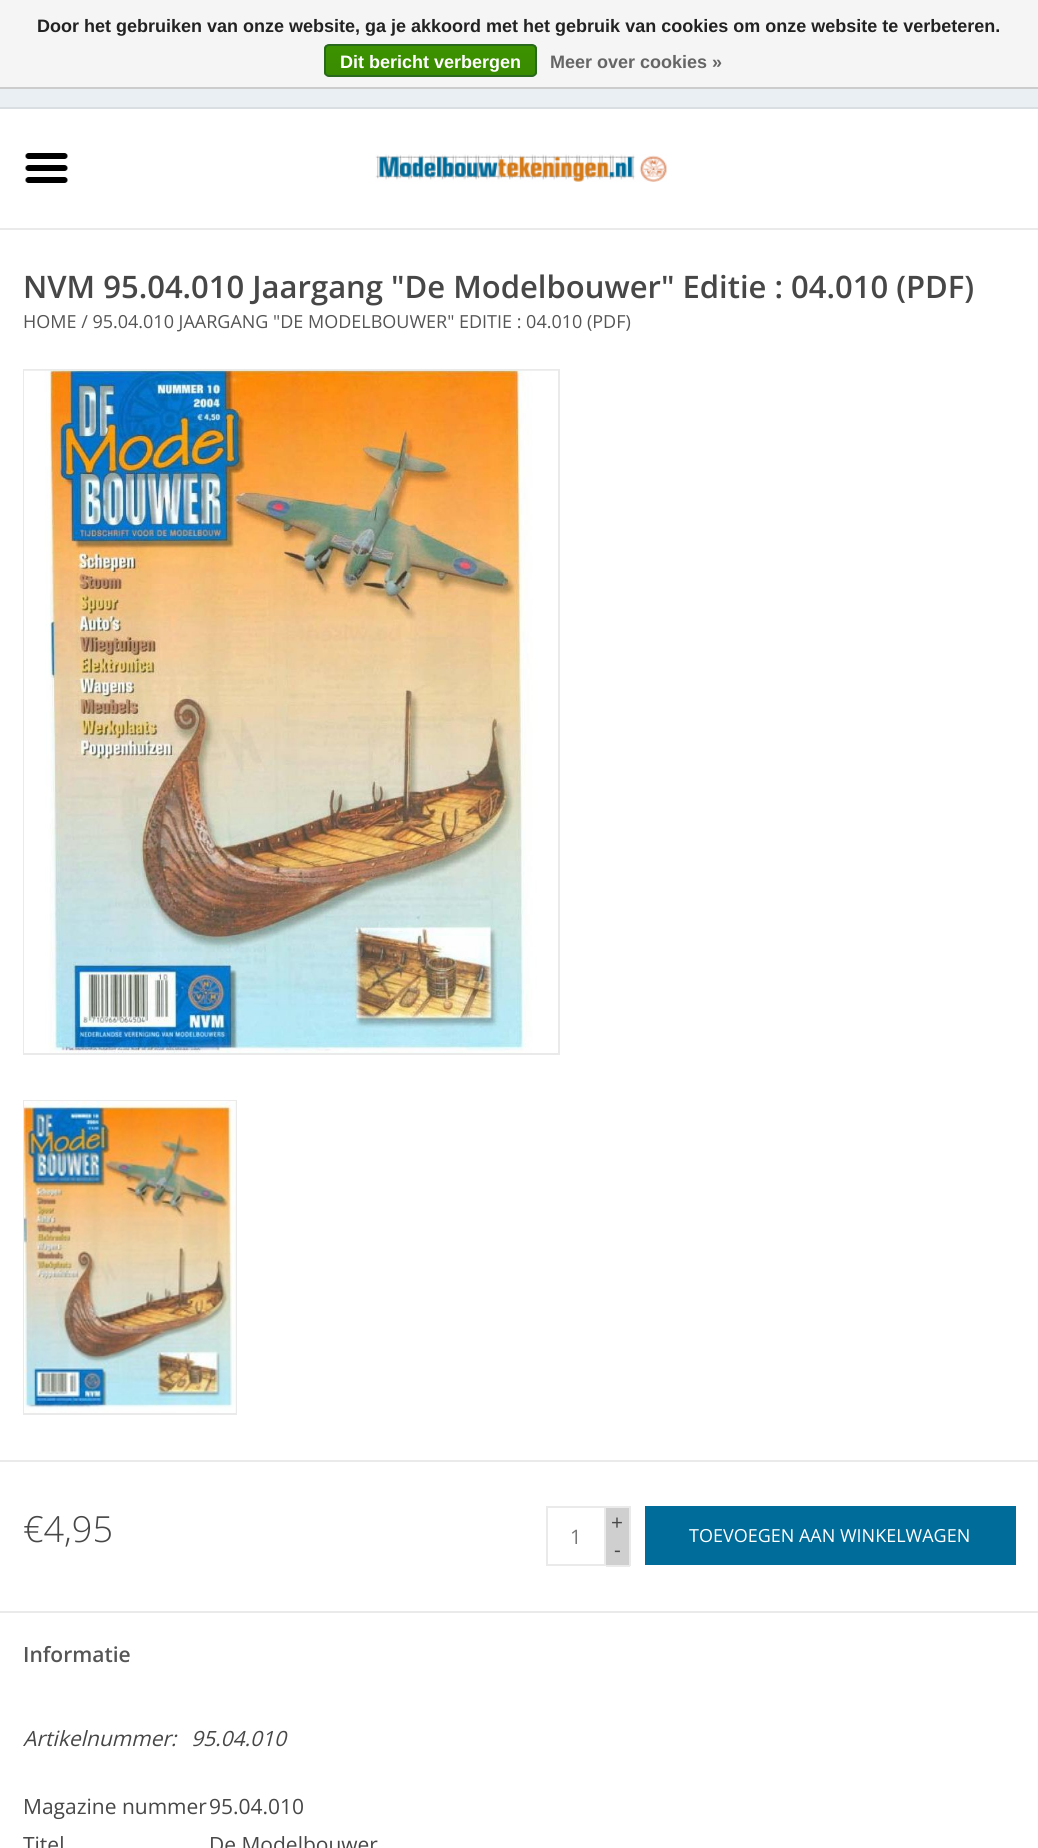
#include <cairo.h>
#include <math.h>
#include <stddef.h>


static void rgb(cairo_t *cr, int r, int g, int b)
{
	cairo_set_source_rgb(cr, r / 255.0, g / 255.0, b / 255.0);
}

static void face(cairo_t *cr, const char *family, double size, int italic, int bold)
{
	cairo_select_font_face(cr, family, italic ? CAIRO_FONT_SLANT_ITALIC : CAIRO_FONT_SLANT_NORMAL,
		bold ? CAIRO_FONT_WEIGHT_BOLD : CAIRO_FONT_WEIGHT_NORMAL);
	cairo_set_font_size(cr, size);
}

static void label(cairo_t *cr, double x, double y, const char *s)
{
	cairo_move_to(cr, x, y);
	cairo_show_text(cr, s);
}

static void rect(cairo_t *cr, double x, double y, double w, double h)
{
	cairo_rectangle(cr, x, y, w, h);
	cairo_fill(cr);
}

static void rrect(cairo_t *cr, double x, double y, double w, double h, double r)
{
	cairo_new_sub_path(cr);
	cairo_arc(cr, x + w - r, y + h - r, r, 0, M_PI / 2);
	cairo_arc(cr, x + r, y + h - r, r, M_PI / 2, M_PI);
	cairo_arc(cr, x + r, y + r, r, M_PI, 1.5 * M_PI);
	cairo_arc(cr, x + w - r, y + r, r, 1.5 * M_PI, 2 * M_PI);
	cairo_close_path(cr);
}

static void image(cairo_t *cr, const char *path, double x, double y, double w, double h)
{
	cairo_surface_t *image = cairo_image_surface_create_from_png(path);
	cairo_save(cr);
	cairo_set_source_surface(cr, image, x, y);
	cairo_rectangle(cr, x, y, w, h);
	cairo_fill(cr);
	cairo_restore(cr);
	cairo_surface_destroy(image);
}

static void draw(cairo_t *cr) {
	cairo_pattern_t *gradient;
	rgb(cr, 255, 255, 255);
	cairo_paint(cr);
	rgb(cr, 245, 245, 245);
	rect(cr, 0, 0, 1038, 87);
	rgb(cr, 204, 204, 204);
	rect(cr, 0, 87, 1038, 2);
	face(cr, "Liberation Sans", 18, 0, 1);
	rgb(cr, 34, 34, 34);
	label(cr, 37, 32, "Door het gebruiken van onze website, ga je akkoord met het gebruik van cookies om onze website te verbeteren.");
	cairo_save(cr);
	rrect(cr, 324, 44, 213, 33, 5);
	cairo_clip(cr);
	gradient = cairo_pattern_create_linear(431, 45, 431, 75);
	cairo_pattern_add_color_stop_rgba(gradient, 0, 0.235, 0.576, 0, 1);
	cairo_pattern_add_color_stop_rgba(gradient, 1, 0.224, 0.541, 0, 1);
	cairo_set_source(cr, gradient);
	cairo_pattern_destroy(gradient);
	rect(cr, 324, 45, 213, 30);
	cairo_restore(cr);
	rrect(cr, 325, 45, 211, 31, 4);
	rgb(cr, 41, 105, 29);
	cairo_stroke(cr);
	rgb(cr, 255, 255, 255);
	label(cr, 340, 68, "Dit bericht verbergen");
	rgb(cr, 102, 102, 102);
	label(cr, 550, 68, "Meer over cookies »");
	rgb(cr, 233, 239, 242);
	rect(cr, 0, 89, 1038, 18);
	rgb(cr, 216, 222, 225);
	rect(cr, 0, 107, 1038, 2);
	image(cr, "image0.png", 25, 153, 43, 30);
	rgb(cr, 234, 234, 234);
	rect(cr, 0, 228, 1038, 2);
	image(cr, "image1.png", 375, 154, 292, 28);
	face(cr, "Open Sans SemiBold", 31, 0, 0);
	rgb(cr, 71, 71, 71);
	label(cr, 23, 298, "NVM 95.04.010 Jaargang \"De Modelbouwer\" Editie : 04.010 (PDF)");
	face(cr, "Open Sans", 18, 0, 0);
	rgb(cr, 85, 85, 85);
	label(cr, 23, 328, "HOME / 95.04.010 JAARGANG \"DE MODELBOUWER\" EDITIE : 04.010 (PDF)");
	cairo_rectangle(cr, 24, 370, 535, 684);
	rgb(cr, 234, 234, 234);
	cairo_stroke(cr);
	image(cr, "image2.png", 24, 370, 534, 683);
	cairo_rectangle(cr, 24, 1101, 212, 313);
	cairo_stroke(cr);
	rgb(cr, 247, 247, 247);
	rect(cr, 235, 1101, 1, 312);
	image(cr, "image3.png", 24, 1101, 212, 312);
	rgb(cr, 234, 234, 234);
	rect(cr, 0, 1460, 1038, 2);
	face(cr, "Open Sans Light", 36, 0, 0);
	rgb(cr, 71, 71, 71);
	label(cr, 23, 1542, "€4,95");
	cairo_rectangle(cr, 547, 1507, 58, 58);
	rgb(cr, 234, 234, 234);
	cairo_stroke(cr);
	face(cr, "Open Sans", 20, 0, 0);
	rgb(cr, 119, 119, 119);
	label(cr, 570, 1544, "1");
	rgb(cr, 207, 207, 207);
	rect(cr, 606, 1508, 23, 57);
	rgb(cr, 234, 234, 234);
	rect(cr, 606, 1506, 24, 2);
	rect(cr, 629, 1506, 2, 60);
	rect(cr, 606, 1565, 24, 2);
	face(cr, "Open Sans", 21, 0, 0);
	rgb(cr, 71, 71, 71);
	label(cr, 611, 1530, "+");
	label(cr, 614, 1557, "-");
	rgb(cr, 0, 108, 154);
	rect(cr, 645, 1506, 371, 59);
	face(cr, "Open Sans", 18, 0, 0);
	rgb(cr, 255, 255, 255);
	label(cr, 689, 1542, "TOEVOEGEN AAN WINKELWAGEN");
	rgb(cr, 234, 234, 234);
	rect(cr, 0, 1611, 1038, 2);
	face(cr, "Open Sans SemiBold", 21, 0, 0);
	rgb(cr, 85, 85, 85);
	label(cr, 23, 1662, "Informatie");
	face(cr, "Open Sans", 21, 1, 0);
	rgb(cr, 71, 71, 71);
	label(cr, 23, 1746, "Artikelnummer:");
	label(cr, 191, 1746, "95.04.010");
	face(cr, "Open Sans", 21, 0, 0);
	label(cr, 23, 1814, "Magazine nummer");
	label(cr, 209, 1814, "95.04.010");
	label(cr, 23, 1852, "Titel");
	label(cr, 209, 1852, "De Modelbouwer");
}

int main(void) {
	cairo_surface_t *surface = cairo_image_surface_create(CAIRO_FORMAT_RGB24, 1038, 1848);
	cairo_t *cr = cairo_create(surface);
	cairo_font_options_t *options = cairo_font_options_create();
	cairo_font_options_set_hint_metrics(options, CAIRO_HINT_METRICS_OFF);
	cairo_font_options_set_hint_style(options, CAIRO_HINT_STYLE_NONE);
	cairo_set_font_options(cr, options);
	cairo_set_miter_limit(cr, 4);
	draw(cr);
	cairo_surface_write_to_png(surface, "render.png");
	cairo_font_options_destroy(options);
	cairo_destroy(cr);
	cairo_surface_destroy(surface);
	return 0;
}
